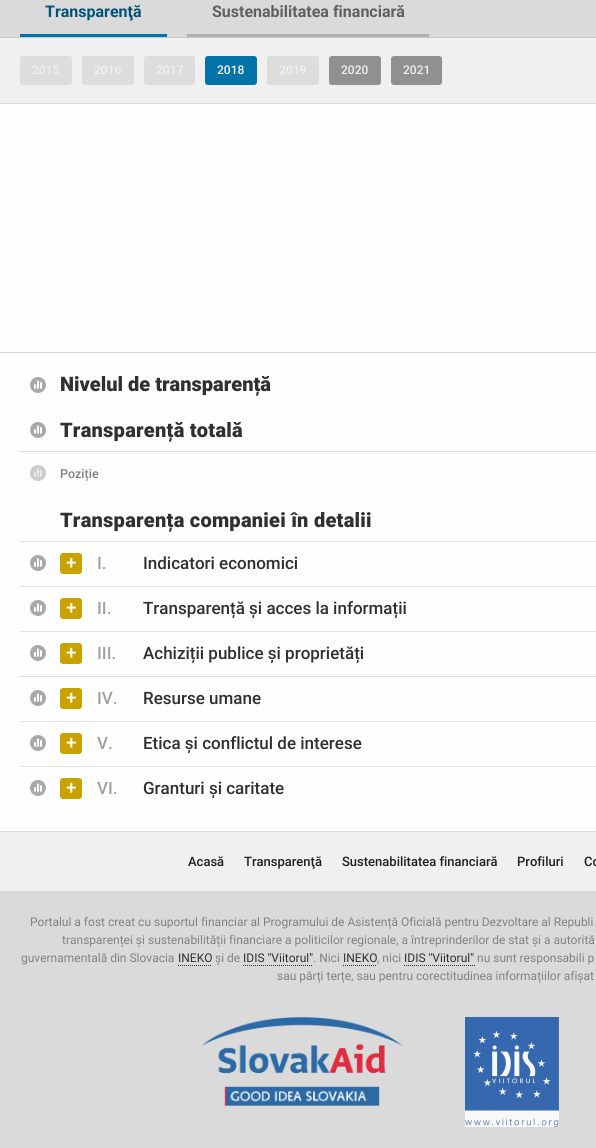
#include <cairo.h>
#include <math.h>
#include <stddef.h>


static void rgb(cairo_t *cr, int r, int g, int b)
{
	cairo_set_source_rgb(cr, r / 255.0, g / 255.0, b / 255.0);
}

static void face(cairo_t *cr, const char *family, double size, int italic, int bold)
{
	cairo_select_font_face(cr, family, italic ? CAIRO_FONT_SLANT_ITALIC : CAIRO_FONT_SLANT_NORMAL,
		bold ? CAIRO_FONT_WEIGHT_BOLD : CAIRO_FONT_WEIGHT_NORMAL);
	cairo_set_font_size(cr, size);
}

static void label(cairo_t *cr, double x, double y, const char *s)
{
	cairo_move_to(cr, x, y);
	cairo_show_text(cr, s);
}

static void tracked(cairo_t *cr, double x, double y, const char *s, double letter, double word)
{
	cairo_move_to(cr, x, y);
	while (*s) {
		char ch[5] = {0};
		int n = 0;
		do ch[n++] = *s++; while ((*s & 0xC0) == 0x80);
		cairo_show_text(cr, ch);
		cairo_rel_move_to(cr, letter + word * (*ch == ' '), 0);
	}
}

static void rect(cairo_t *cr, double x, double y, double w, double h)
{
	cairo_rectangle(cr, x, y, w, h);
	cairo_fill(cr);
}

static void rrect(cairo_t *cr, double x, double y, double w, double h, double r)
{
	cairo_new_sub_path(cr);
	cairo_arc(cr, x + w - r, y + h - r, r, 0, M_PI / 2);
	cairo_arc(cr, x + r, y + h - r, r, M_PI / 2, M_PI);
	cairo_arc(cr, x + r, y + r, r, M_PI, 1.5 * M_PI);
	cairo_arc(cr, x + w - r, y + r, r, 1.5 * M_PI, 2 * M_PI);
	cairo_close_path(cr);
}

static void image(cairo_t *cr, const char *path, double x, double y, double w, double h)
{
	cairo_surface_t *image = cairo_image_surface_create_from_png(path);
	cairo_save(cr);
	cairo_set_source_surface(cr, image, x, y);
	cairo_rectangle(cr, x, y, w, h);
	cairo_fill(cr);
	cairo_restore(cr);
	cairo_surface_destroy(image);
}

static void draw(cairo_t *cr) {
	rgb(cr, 218, 218, 218);
	cairo_paint(cr);
	rgb(cr, 254, 254, 254);
	rect(cr, 0, 104, 596, 727);
	rgb(cr, 202, 202, 202);
	rect(cr, 0, 37, 596, 1);
	rgb(cr, 1, 115, 169);
	rect(cr, 20, 34, 147, 3);
	face(cr, "Roboto", 16, 0, 1);
	rgb(cr, 1, 83, 121);
	label(cr, 45, 17, "Transparenţă");
	rgb(cr, 176, 176, 176);
	rect(cr, 187, 34, 242, 3);
	rgb(cr, 96, 96, 96);
	label(cr, 212, 17, "Sustenabilitatea financiară");
	rgb(cr, 240, 240, 240);
	rect(cr, 0, 38, 596, 65);
	rgb(cr, 221, 221, 221);
	rrect(cr, 20, 56, 52, 29, 3);
	cairo_fill(cr);
	face(cr, "Roboto Medium", 12, 0, 0);
	rgb(cr, 240, 240, 240);
	label(cr, 32, 74, "2015");
	rgb(cr, 221, 221, 221);
	rrect(cr, 82, 56, 52, 29, 3);
	cairo_fill(cr);
	rgb(cr, 240, 240, 240);
	label(cr, 94, 74, "2016");
	rgb(cr, 221, 221, 221);
	rrect(cr, 144, 56, 51, 29, 3);
	cairo_fill(cr);
	rgb(cr, 240, 240, 240);
	label(cr, 156, 74, "2017");
	rgb(cr, 1, 115, 169);
	rrect(cr, 205, 56, 52, 29, 3);
	cairo_fill(cr);
	rgb(cr, 250, 250, 250);
	label(cr, 217, 74, "2018");
	rgb(cr, 221, 221, 221);
	rrect(cr, 267, 56, 52, 29, 3);
	cairo_fill(cr);
	rgb(cr, 240, 240, 240);
	label(cr, 279, 74, "2019");
	rgb(cr, 144, 144, 144);
	rrect(cr, 329, 56, 52, 29, 3);
	cairo_fill(cr);
	rgb(cr, 240, 240, 240);
	label(cr, 341, 74, "2020");
	rgb(cr, 144, 144, 144);
	rrect(cr, 391, 56, 51, 29, 3);
	cairo_fill(cr);
	rgb(cr, 240, 240, 240);
	label(cr, 403, 74, "2021");
	rgb(cr, 208, 208, 208);
	rect(cr, 0, 352, 596, 1);
	image(cr, "image0.png", 30, 377, 16, 16);
	face(cr, "Roboto Black", 20, 0, 0);
	rgb(cr, 48, 48, 48);
	label(cr, 60, 391, "Nivelul de transparență");
	image(cr, "image0.png", 30, 422, 16, 16);
	tracked(cr, 60, 437, "Transparență totală", 0.25, 0);
	rgb(cr, 224, 224, 224);
	rect(cr, 20, 451, 576, 1);
	image(cr, "image1.png", 30, 465, 16, 16);
	face(cr, "Roboto Medium", 12.5, 0, 0);
	rgb(cr, 130, 130, 130);
	label(cr, 60, 478, "Poziție");
	face(cr, "Roboto Black", 20, 0, 0);
	rgb(cr, 48, 48, 48);
	tracked(cr, 60, 527, "Transparența companiei în detalii", 0.25, 0);
	rgb(cr, 224, 224, 224);
	rect(cr, 20, 541, 576, 1);
	image(cr, "image0.png", 30, 555, 16, 16);
	rgb(cr, 202, 162, 0);
	rrect(cr, 60, 553, 22, 21, 3);
	cairo_fill(cr);
	face(cr, "Roboto Medium", 19, 0, 0);
	rgb(cr, 250, 250, 250);
	label(cr, 66, 569, "+");
	face(cr, "Roboto Medium", 17, 0, 0);
	rgb(cr, 160, 160, 160);
	label(cr, 97, 569, "I.");
	rgb(cr, 48, 48, 48);
	label(cr, 143, 569, "Indicatori economici");
	rgb(cr, 224, 224, 224);
	rect(cr, 20, 586, 576, 1);
	image(cr, "image0.png", 30, 600, 16, 16);
	rgb(cr, 202, 162, 0);
	rrect(cr, 60, 598, 22, 21, 3);
	cairo_fill(cr);
	face(cr, "Roboto Medium", 19, 0, 0);
	rgb(cr, 250, 250, 250);
	label(cr, 66, 614, "+");
	face(cr, "Roboto Medium", 17, 0, 0);
	rgb(cr, 160, 160, 160);
	label(cr, 97, 614, "II.");
	rgb(cr, 48, 48, 48);
	label(cr, 143, 614, "Transparență și acces la informații");
	rgb(cr, 224, 224, 224);
	rect(cr, 20, 631, 576, 1);
	image(cr, "image0.png", 30, 645, 16, 16);
	rgb(cr, 202, 162, 0);
	rrect(cr, 60, 643, 22, 21, 3);
	cairo_fill(cr);
	face(cr, "Roboto Medium", 19, 0, 0);
	rgb(cr, 250, 250, 250);
	label(cr, 66, 659, "+");
	face(cr, "Roboto Medium", 17, 0, 0);
	rgb(cr, 160, 160, 160);
	label(cr, 97, 659, "III.");
	rgb(cr, 48, 48, 48);
	label(cr, 143, 659, "Achiziții publice și proprietăți");
	rgb(cr, 224, 224, 224);
	rect(cr, 20, 676, 576, 1);
	image(cr, "image0.png", 30, 690, 16, 16);
	rgb(cr, 202, 162, 0);
	rrect(cr, 60, 688, 22, 21, 3);
	cairo_fill(cr);
	face(cr, "Roboto Medium", 19, 0, 0);
	rgb(cr, 250, 250, 250);
	label(cr, 66, 704, "+");
	face(cr, "Roboto Medium", 17, 0, 0);
	rgb(cr, 160, 160, 160);
	label(cr, 97, 704, "IV.");
	rgb(cr, 48, 48, 48);
	label(cr, 143, 704, "Resurse umane");
	rgb(cr, 224, 224, 224);
	rect(cr, 20, 721, 576, 1);
	image(cr, "image0.png", 30, 735, 16, 16);
	rgb(cr, 202, 162, 0);
	rrect(cr, 60, 733, 22, 21, 3);
	cairo_fill(cr);
	face(cr, "Roboto Medium", 19, 0, 0);
	rgb(cr, 250, 250, 250);
	label(cr, 66, 749, "+");
	face(cr, "Roboto Medium", 17, 0, 0);
	rgb(cr, 160, 160, 160);
	label(cr, 97, 749, "V.");
	rgb(cr, 48, 48, 48);
	label(cr, 143, 749, "Etica și conflictul de interese");
	rgb(cr, 224, 224, 224);
	rect(cr, 20, 766, 576, 1);
	image(cr, "image0.png", 30, 780, 16, 16);
	rgb(cr, 202, 162, 0);
	rrect(cr, 60, 778, 22, 21, 3);
	cairo_fill(cr);
	face(cr, "Roboto Medium", 19, 0, 0);
	rgb(cr, 250, 250, 250);
	label(cr, 66, 794, "+");
	face(cr, "Roboto Medium", 17, 0, 0);
	rgb(cr, 160, 160, 160);
	label(cr, 97, 794, "VI.");
	rgb(cr, 48, 48, 48);
	label(cr, 143, 794, "Granturi și caritate");
	rgb(cr, 240, 240, 240);
	rect(cr, 0, 832, 596, 59);
	face(cr, "Roboto Medium", 13, 0, 0);
	rgb(cr, 32, 32, 32);
	label(cr, 188, 866, "Acasă");
	label(cr, 244, 866, "Transparenţă");
	label(cr, 342, 866, "Sustenabilitatea financiară");
	label(cr, 517, 866, "Profiluri");
	label(cr, 584, 866, "Co");
	face(cr, "Roboto", 12, 0, 0);
	rgb(cr, 130, 130, 130);
	label(cr, 30, 926, "Portalul a fost creat cu suportul financiar al Programului de Asistență Oficială pentru Dezvoltare al Republi");
	label(cr, 62, 944, "transparenței și sustenabilității financiare a politicilor regionale, a întreprinderilor de stat și a autorită");
	label(cr, 21, 962, "guvernamentală din Slovacia");
	rgb(cr, 48, 48, 48);
	label(cr, 178, 962, "INEKO");
	cairo_new_path(cr);
	cairo_move_to(cr, 178, 965.5);
	cairo_line_to(cr, 212, 965.5);
	cairo_set_line_width(cr, 1);
	cairo_set_dash(cr, (double[]){1, 1}, 2, 0);
	cairo_stroke(cr);
	rgb(cr, 130, 130, 130);
	label(cr, 215, 962, "și de");
	rgb(cr, 48, 48, 48);
	label(cr, 243, 962, "IDIS \"Viitorul\"");
	cairo_new_path(cr);
	cairo_move_to(cr, 243, 965.5);
	cairo_line_to(cr, 313, 965.5);
	cairo_stroke(cr);
	rgb(cr, 130, 130, 130);
	label(cr, 313, 962, ". Nici");
	rgb(cr, 48, 48, 48);
	label(cr, 343, 962, "INEKO");
	cairo_new_path(cr);
	cairo_move_to(cr, 343, 965.5);
	cairo_line_to(cr, 377, 965.5);
	cairo_stroke(cr);
	rgb(cr, 130, 130, 130);
	label(cr, 377, 962, ", nici");
	rgb(cr, 48, 48, 48);
	label(cr, 404, 962, "IDIS \"Viitorul\"");
	cairo_new_path(cr);
	cairo_move_to(cr, 404, 965.5);
	cairo_line_to(cr, 475, 965.5);
	cairo_stroke(cr);
	rgb(cr, 130, 130, 130);
	label(cr, 477, 962, "nu sunt responsabili p");
	label(cr, 277, 980, "sau părți terțe, sau pentru corectitudinea informațiilor afișat");
	image(cr, "image2.png", 202, 1017, 200, 89);
	image(cr, "image3.png", 465, 1017, 94, 110);
}

int main(void) {
	cairo_surface_t *surface = cairo_image_surface_create(CAIRO_FORMAT_RGB24, 596, 1148);
	cairo_t *cr = cairo_create(surface);
	cairo_font_options_t *options = cairo_font_options_create();
	cairo_font_options_set_hint_metrics(options, CAIRO_HINT_METRICS_OFF);
	cairo_font_options_set_hint_style(options, CAIRO_HINT_STYLE_NONE);
	cairo_set_font_options(cr, options);
	cairo_set_miter_limit(cr, 4);
	draw(cr);
	cairo_surface_write_to_png(surface, "render.png");
	cairo_font_options_destroy(options);
	cairo_destroy(cr);
	cairo_surface_destroy(surface);
	return 0;
}
